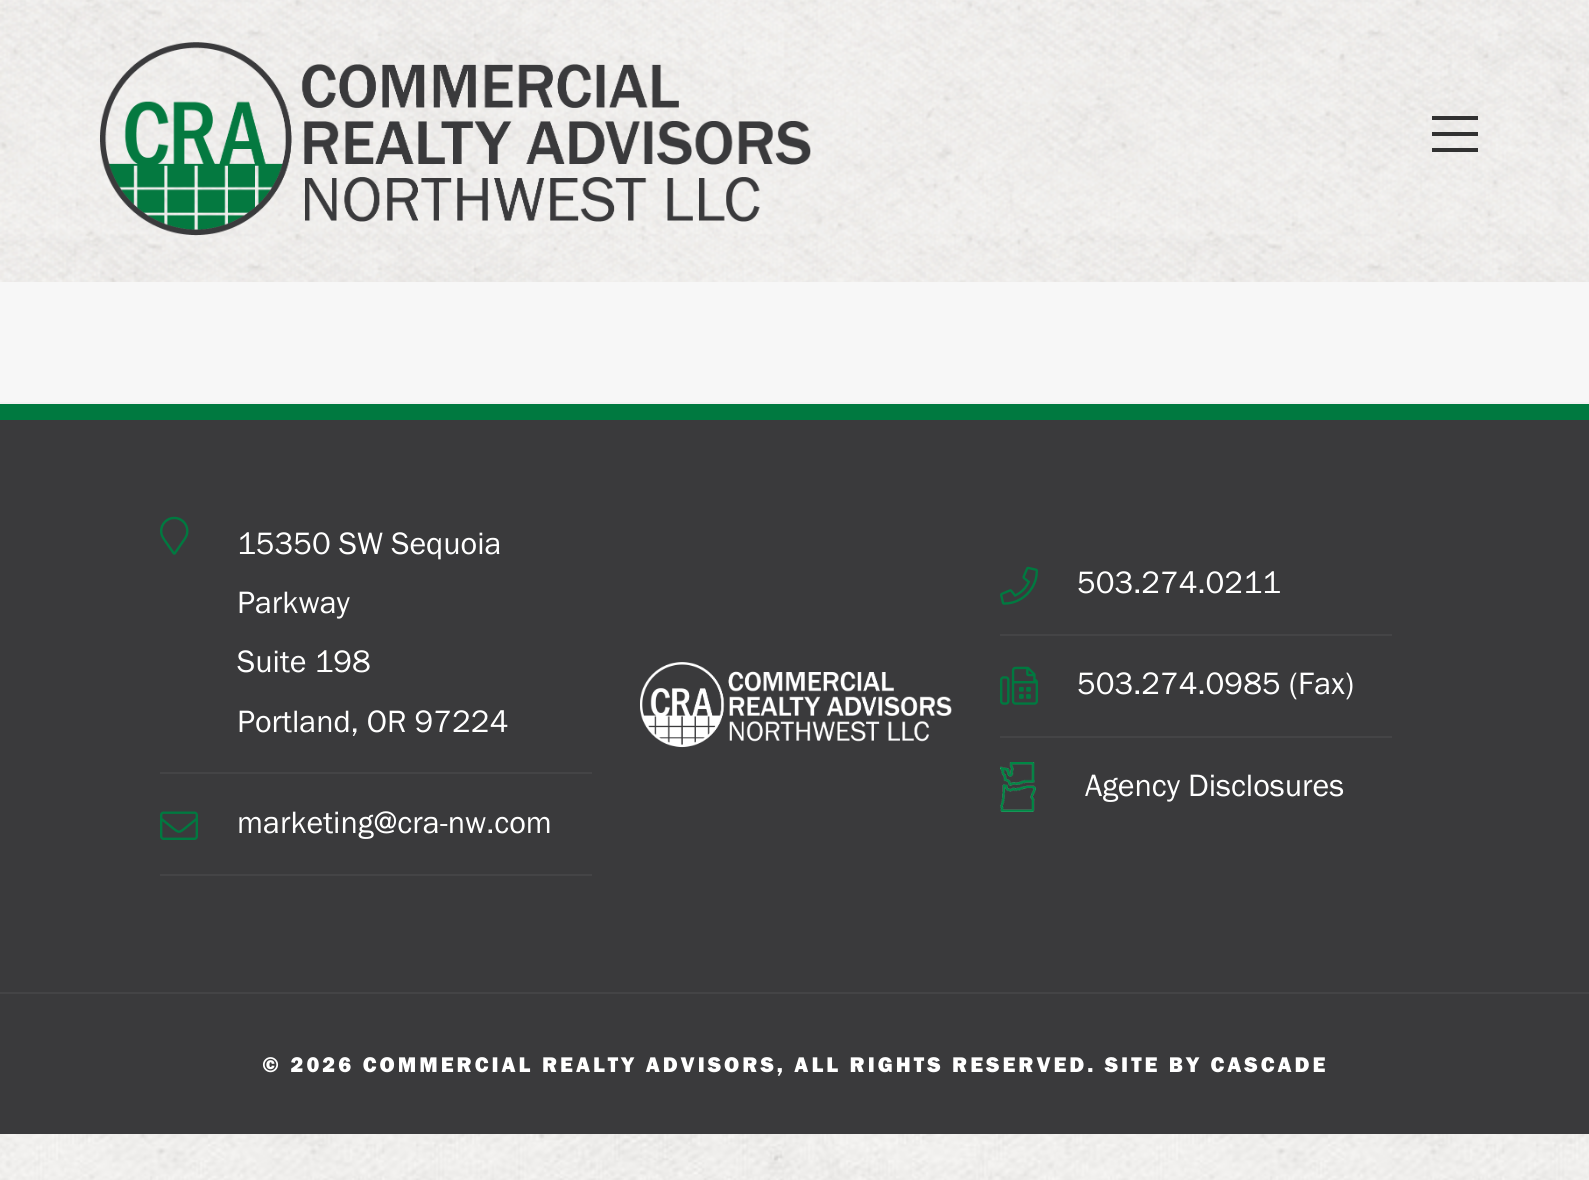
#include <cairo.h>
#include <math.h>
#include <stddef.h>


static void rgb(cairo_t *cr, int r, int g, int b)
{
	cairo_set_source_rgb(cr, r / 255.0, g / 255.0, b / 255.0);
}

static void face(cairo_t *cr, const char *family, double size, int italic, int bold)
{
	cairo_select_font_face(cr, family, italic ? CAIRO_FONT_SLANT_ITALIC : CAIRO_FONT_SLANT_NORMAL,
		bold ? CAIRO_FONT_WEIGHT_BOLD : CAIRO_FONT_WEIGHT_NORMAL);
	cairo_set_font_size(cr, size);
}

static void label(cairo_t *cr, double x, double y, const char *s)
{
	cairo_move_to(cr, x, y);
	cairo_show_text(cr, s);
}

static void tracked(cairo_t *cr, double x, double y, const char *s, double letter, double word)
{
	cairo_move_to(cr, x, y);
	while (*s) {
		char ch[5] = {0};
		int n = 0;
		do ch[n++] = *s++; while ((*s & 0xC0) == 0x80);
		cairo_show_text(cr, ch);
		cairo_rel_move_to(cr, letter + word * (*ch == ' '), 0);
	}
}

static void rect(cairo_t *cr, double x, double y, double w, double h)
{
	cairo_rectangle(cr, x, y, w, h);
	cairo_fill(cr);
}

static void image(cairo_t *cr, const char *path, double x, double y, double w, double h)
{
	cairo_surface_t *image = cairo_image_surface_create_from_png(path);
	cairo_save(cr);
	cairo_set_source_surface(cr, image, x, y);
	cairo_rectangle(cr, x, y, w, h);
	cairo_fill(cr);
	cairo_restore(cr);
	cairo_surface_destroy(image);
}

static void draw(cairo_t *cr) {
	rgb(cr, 255, 255, 255);
	cairo_paint(cr);
	image(cr, "image0.png", 0, 0, 1589, 1180);
	image(cr, "image1.png", 0, 0, 1589, 282);
	image(cr, "image2.png", 100, 42, 711, 194);
	rgb(cr, 49, 49, 49);
	rect(cr, 1432, 116, 46, 4);
	rect(cr, 1432, 132, 46, 4);
	rect(cr, 1432, 148, 46, 4);
	rgb(cr, 247, 247, 247);
	rect(cr, 0, 282, 1589, 120);
	rgb(cr, 242, 242, 242);
	rect(cr, 0, 402, 1589, 2);
	rgb(cr, 58, 58, 60);
	rect(cr, 0, 420, 1589, 714);
	rgb(cr, 0, 121, 64);
	rect(cr, 0, 404, 1589, 16);
	rgb(cr, 68, 68, 70);
	rect(cr, 160, 772, 432, 2);
	image(cr, "image3.png", 160, 516, 29, 39);
	face(cr, "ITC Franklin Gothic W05", 32, 0, 0);
	rgb(cr, 255, 255, 255);
	label(cr, 237, 554, "15350 SW Sequoia");
	label(cr, 237, 613, "Parkway");
	label(cr, 237, 672, "Suite 198");
	label(cr, 237, 732, "Portland, OR 97224");
	rgb(cr, 68, 68, 70);
	rect(cr, 160, 874, 432, 2);
	image(cr, "image4.png", 160, 811, 38, 29);
	rgb(cr, 255, 255, 255);
	label(cr, 237, 833, "marketing@cra-nw.com");
	image(cr, "image5.png", 640, 662, 312, 86);
	rgb(cr, 68, 68, 70);
	rect(cr, 1000, 634, 392, 2);
	image(cr, "image6.png", 1000, 566, 38, 39);
	rgb(cr, 255, 255, 255);
	label(cr, 1077, 593, "503.274.0211");
	rgb(cr, 68, 68, 70);
	rect(cr, 1000, 736, 392, 2);
	image(cr, "image7.png", 1000, 666, 38, 39);
	rgb(cr, 255, 255, 255);
	label(cr, 1077, 694, "503.274.0985 (Fax)");
	image(cr, "image8.png", 1000, 762, 36, 50);
	label(cr, 1085, 796, "Agency Disclosures");
	rgb(cr, 68, 68, 70);
	rect(cr, 0, 992, 1589, 2);
	face(cr, "ITC Franklin Gothic W05 Black", 22, 0, 0);
	rgb(cr, 255, 255, 255);
	tracked(cr, 262, 1072, "© 2026 COMMERCIAL REALTY ADVISORS, ALL RIGHTS RESERVED. SITE BY CASCADE", 3, 0);
}

int main(void) {
	cairo_surface_t *surface = cairo_image_surface_create(CAIRO_FORMAT_RGB24, 1589, 1180);
	cairo_t *cr = cairo_create(surface);
	cairo_font_options_t *options = cairo_font_options_create();
	cairo_font_options_set_hint_metrics(options, CAIRO_HINT_METRICS_OFF);
	cairo_font_options_set_hint_style(options, CAIRO_HINT_STYLE_NONE);
	cairo_set_font_options(cr, options);
	cairo_set_miter_limit(cr, 4);
	draw(cr);
	cairo_surface_write_to_png(surface, "render.png");
	cairo_font_options_destroy(options);
	cairo_destroy(cr);
	cairo_surface_destroy(surface);
	return 0;
}
